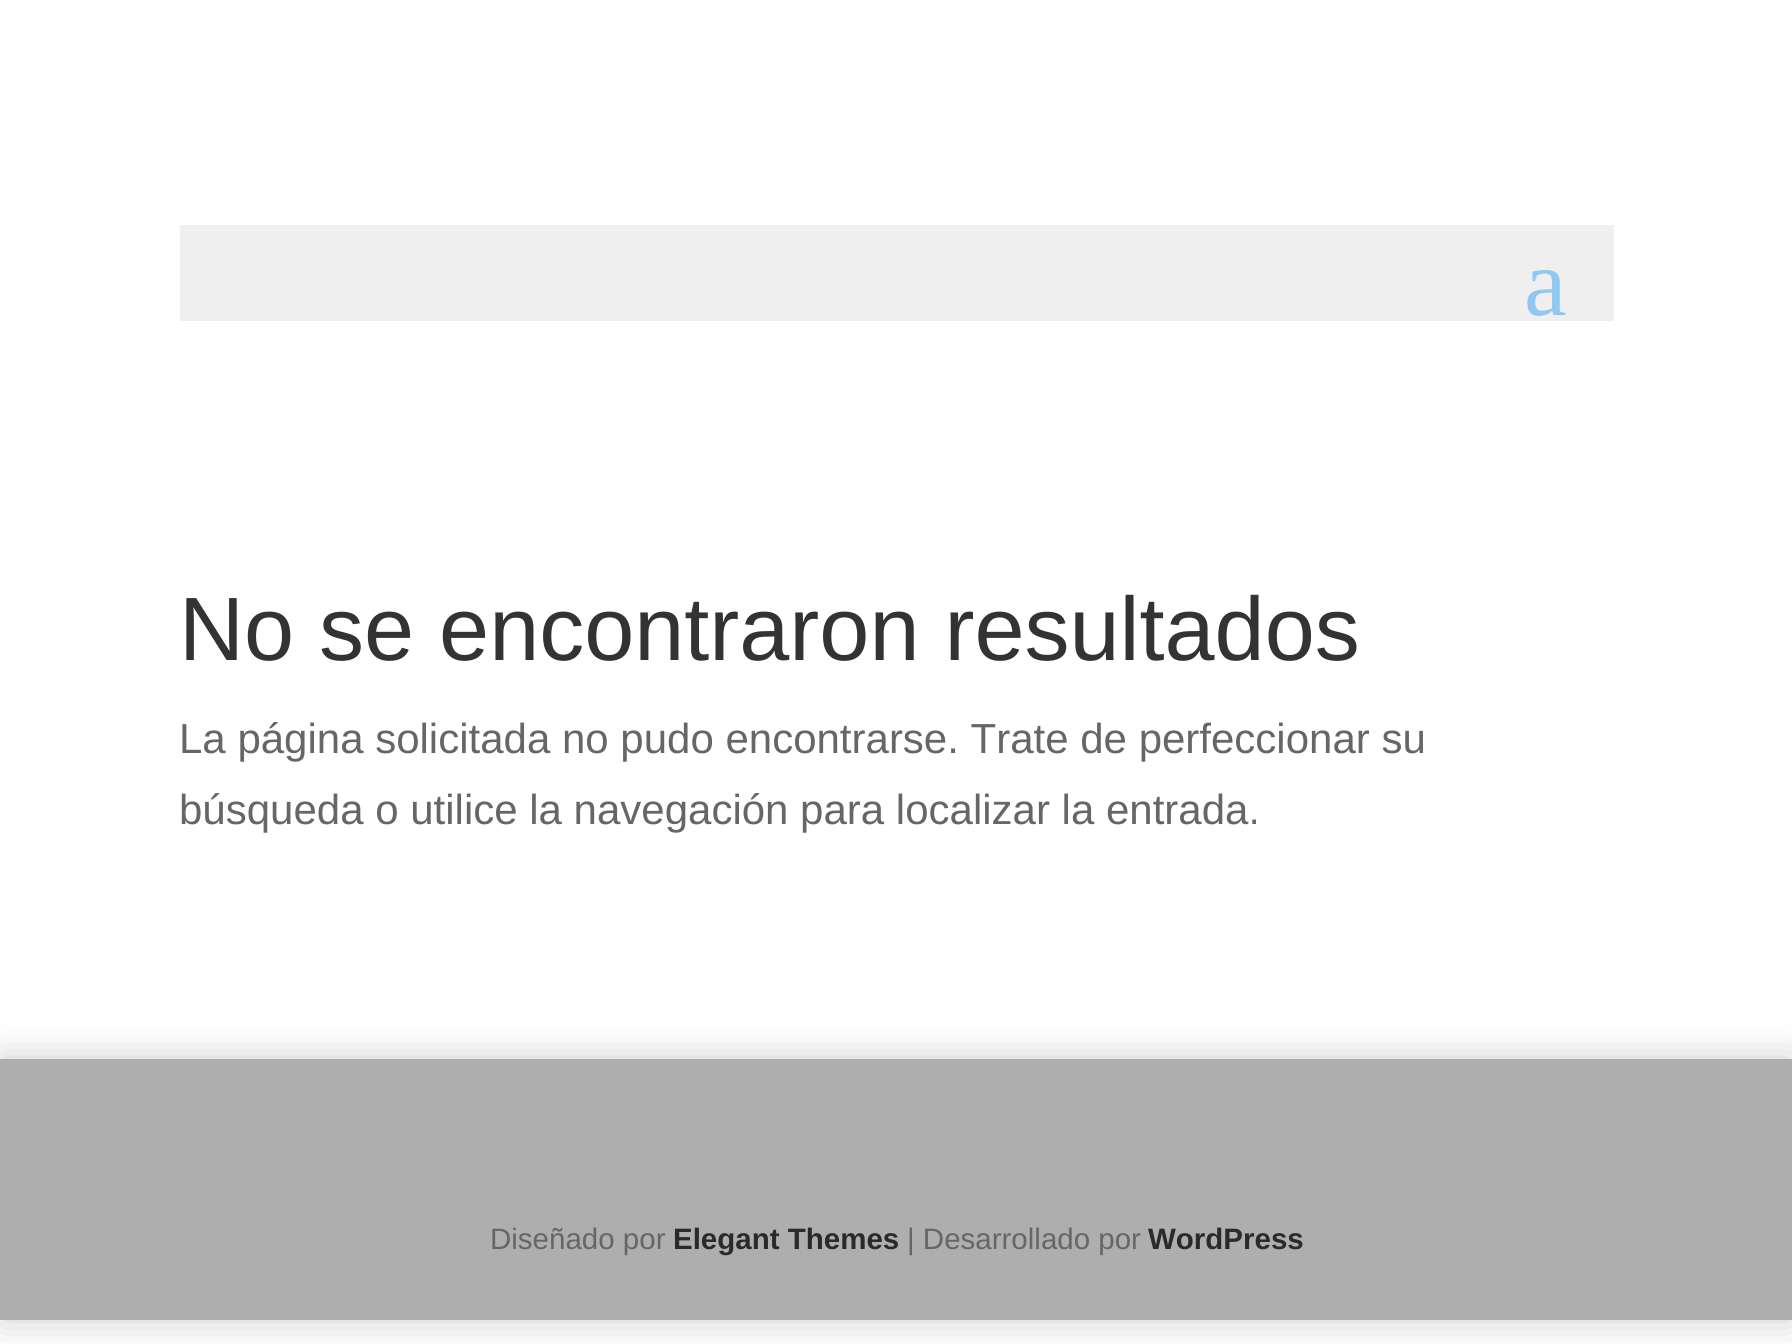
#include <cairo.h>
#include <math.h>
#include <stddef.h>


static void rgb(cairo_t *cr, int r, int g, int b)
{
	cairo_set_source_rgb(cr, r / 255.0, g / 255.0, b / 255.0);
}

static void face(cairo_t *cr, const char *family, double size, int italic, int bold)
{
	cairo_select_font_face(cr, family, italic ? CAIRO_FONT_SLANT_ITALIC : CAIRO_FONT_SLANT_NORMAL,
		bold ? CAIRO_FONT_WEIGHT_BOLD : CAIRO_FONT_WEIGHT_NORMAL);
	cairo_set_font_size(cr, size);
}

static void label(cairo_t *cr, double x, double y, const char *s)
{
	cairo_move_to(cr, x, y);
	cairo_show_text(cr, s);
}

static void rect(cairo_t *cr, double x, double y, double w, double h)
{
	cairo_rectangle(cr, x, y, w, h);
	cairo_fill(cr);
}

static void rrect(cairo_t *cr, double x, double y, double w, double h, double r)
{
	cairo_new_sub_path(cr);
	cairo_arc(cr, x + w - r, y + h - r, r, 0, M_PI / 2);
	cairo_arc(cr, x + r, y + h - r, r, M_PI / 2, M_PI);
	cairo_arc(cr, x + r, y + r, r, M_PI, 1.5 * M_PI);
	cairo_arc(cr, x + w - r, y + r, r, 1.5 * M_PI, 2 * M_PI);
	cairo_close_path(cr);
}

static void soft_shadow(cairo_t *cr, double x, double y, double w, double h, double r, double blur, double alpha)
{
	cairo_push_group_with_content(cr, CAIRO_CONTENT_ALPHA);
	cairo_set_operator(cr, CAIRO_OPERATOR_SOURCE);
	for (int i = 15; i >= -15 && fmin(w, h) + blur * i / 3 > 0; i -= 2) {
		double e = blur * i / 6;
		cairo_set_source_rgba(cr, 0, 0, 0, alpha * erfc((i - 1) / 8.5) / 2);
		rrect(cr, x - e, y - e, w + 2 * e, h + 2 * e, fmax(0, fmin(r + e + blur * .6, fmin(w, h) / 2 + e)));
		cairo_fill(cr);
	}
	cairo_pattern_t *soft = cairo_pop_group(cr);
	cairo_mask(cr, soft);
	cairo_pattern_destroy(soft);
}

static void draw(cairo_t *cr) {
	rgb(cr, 255, 255, 255);
	cairo_paint(cr);
	rgb(cr, 239, 239, 239);
	rect(cr, 180, 225, 1434, 96);
	face(cr, "Liberation Serif", 96, 0, 0);
	rgb(cr, 143, 201, 241);
	label(cr, 1524, 315, "a");
	face(cr, "Liberation Sans", 90, 0, 0);
	rgb(cr, 51, 51, 51);
	label(cr, 179, 660, "No se encontraron resultados");
	face(cr, "Liberation Sans", 42, 0, 0);
	rgb(cr, 102, 102, 102);
	label(cr, 179, 753, "La página solicitada no pudo encontrarse. Trate de perfeccionar su");
	label(cr, 179, 824, "búsqueda o utilice la navegación para localizar la entrada.");
	rgb(cr, 50, 50, 50);
	soft_shadow(cr, 0, 1059, 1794, 261, 0, 19.5, 0.25);
	rgb(cr, 174, 174, 174);
	rect(cr, 0, 1059, 1792, 261);
	face(cr, "Liberation Sans", 29.5, 0, 0);
	rgb(cr, 102, 102, 102);
	label(cr, 490, 1249, "Diseñado por");
	face(cr, "Liberation Sans", 29.5, 0, 1);
	rgb(cr, 43, 42, 41);
	label(cr, 673, 1249, "Elegant Themes");
	face(cr, "Liberation Sans", 29.5, 0, 0);
	rgb(cr, 102, 102, 102);
	label(cr, 907, 1249, "| Desarrollado por");
	face(cr, "Liberation Sans", 29.5, 0, 1);
	rgb(cr, 43, 42, 41);
	label(cr, 1148, 1249, "WordPress");
}

int main(void) {
	cairo_surface_t *surface = cairo_image_surface_create(CAIRO_FORMAT_RGB24, 1792, 1344);
	cairo_t *cr = cairo_create(surface);
	cairo_font_options_t *options = cairo_font_options_create();
	cairo_font_options_set_hint_metrics(options, CAIRO_HINT_METRICS_OFF);
	cairo_font_options_set_hint_style(options, CAIRO_HINT_STYLE_NONE);
	cairo_set_font_options(cr, options);
	cairo_set_miter_limit(cr, 4);
	draw(cr);
	cairo_surface_write_to_png(surface, "render.png");
	cairo_font_options_destroy(options);
	cairo_destroy(cr);
	cairo_surface_destroy(surface);
	return 0;
}
